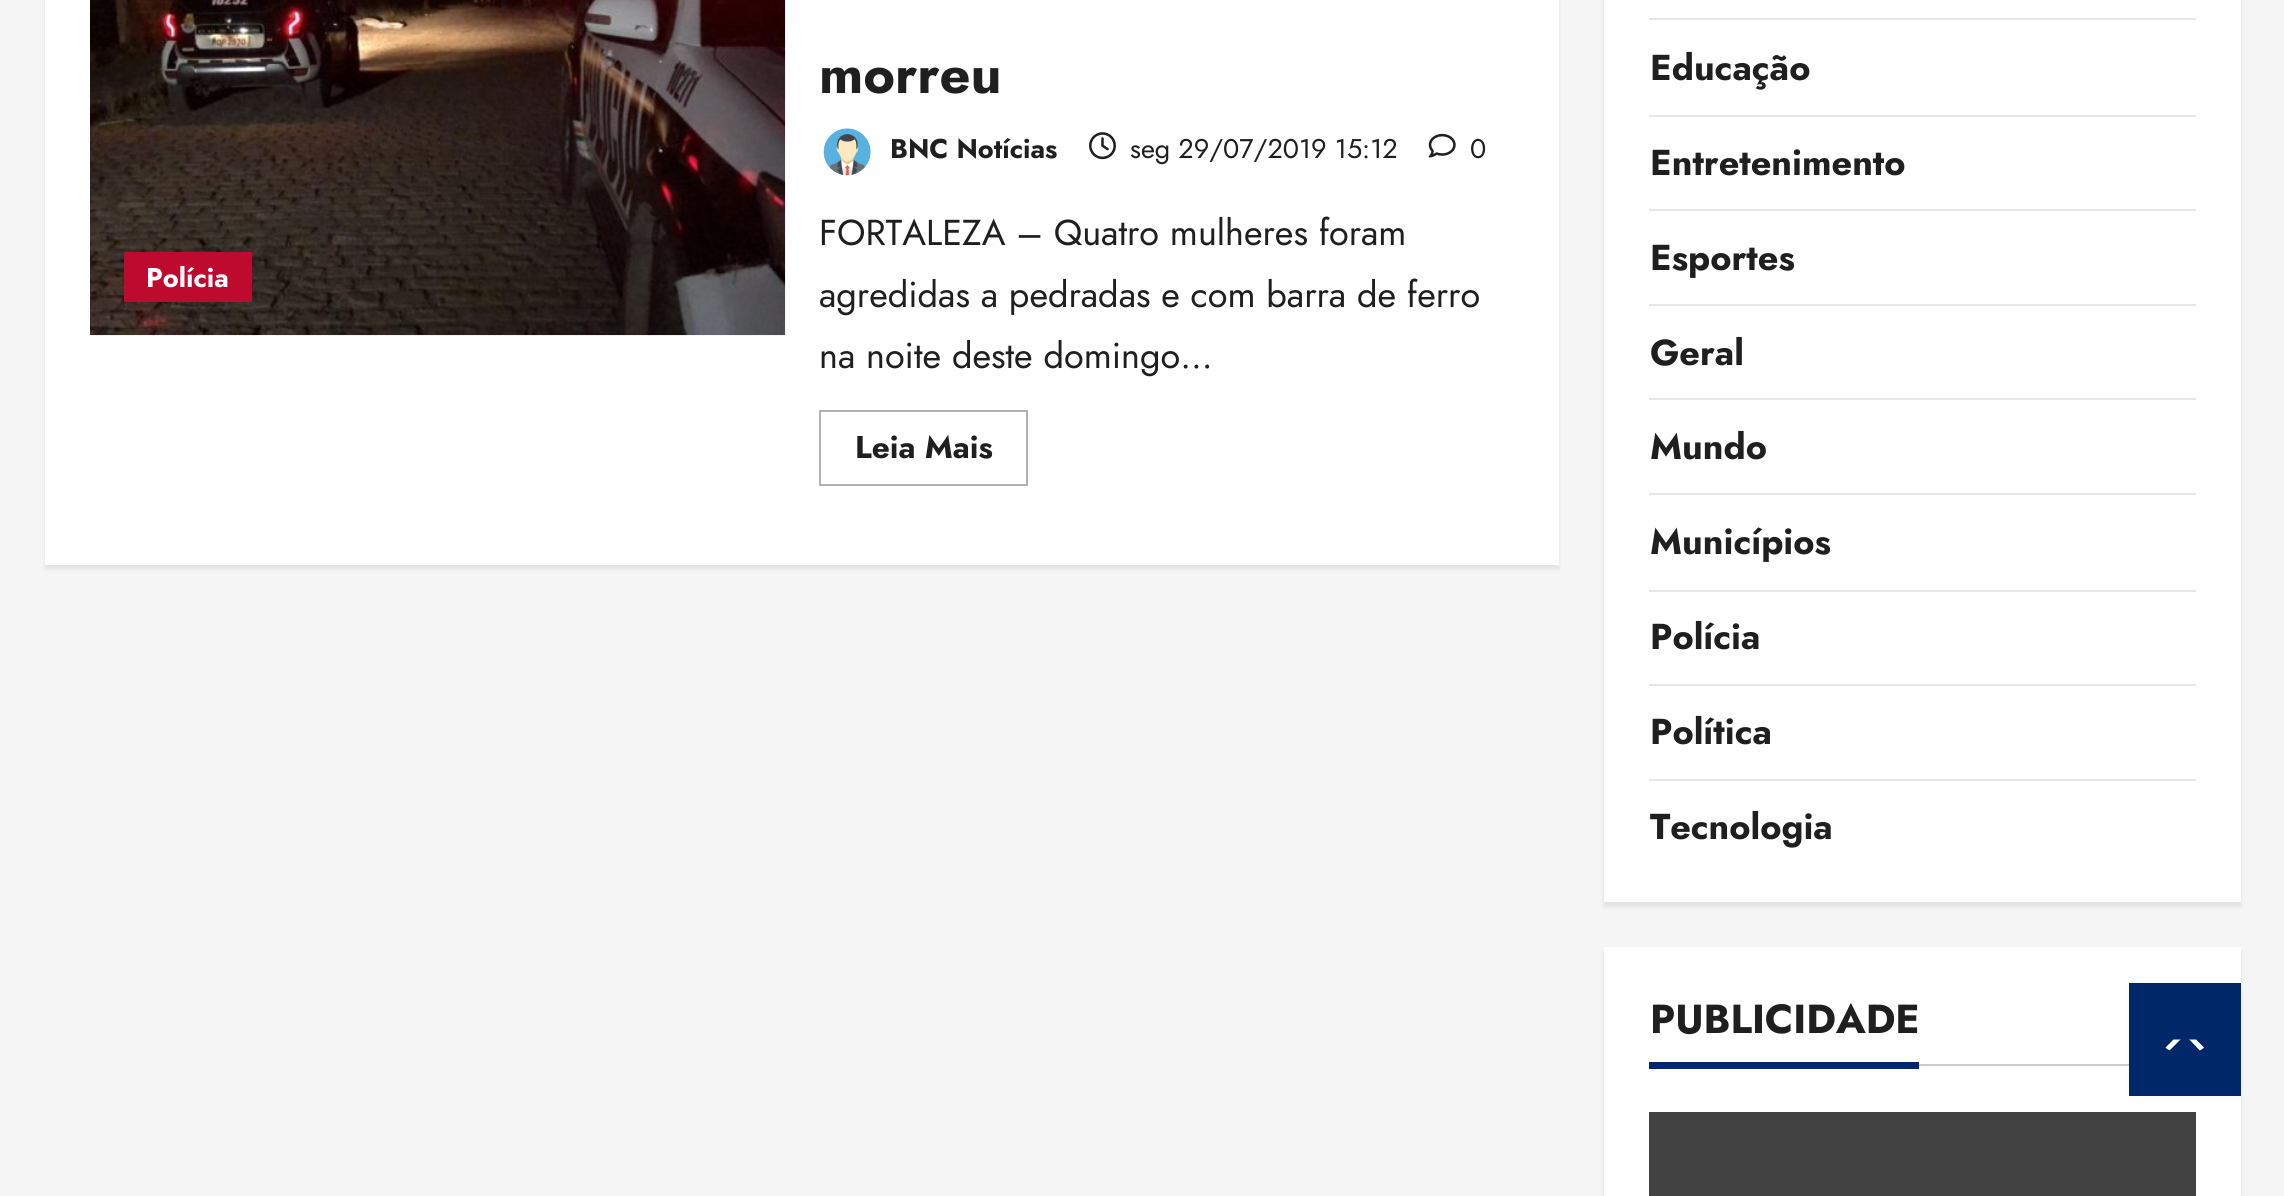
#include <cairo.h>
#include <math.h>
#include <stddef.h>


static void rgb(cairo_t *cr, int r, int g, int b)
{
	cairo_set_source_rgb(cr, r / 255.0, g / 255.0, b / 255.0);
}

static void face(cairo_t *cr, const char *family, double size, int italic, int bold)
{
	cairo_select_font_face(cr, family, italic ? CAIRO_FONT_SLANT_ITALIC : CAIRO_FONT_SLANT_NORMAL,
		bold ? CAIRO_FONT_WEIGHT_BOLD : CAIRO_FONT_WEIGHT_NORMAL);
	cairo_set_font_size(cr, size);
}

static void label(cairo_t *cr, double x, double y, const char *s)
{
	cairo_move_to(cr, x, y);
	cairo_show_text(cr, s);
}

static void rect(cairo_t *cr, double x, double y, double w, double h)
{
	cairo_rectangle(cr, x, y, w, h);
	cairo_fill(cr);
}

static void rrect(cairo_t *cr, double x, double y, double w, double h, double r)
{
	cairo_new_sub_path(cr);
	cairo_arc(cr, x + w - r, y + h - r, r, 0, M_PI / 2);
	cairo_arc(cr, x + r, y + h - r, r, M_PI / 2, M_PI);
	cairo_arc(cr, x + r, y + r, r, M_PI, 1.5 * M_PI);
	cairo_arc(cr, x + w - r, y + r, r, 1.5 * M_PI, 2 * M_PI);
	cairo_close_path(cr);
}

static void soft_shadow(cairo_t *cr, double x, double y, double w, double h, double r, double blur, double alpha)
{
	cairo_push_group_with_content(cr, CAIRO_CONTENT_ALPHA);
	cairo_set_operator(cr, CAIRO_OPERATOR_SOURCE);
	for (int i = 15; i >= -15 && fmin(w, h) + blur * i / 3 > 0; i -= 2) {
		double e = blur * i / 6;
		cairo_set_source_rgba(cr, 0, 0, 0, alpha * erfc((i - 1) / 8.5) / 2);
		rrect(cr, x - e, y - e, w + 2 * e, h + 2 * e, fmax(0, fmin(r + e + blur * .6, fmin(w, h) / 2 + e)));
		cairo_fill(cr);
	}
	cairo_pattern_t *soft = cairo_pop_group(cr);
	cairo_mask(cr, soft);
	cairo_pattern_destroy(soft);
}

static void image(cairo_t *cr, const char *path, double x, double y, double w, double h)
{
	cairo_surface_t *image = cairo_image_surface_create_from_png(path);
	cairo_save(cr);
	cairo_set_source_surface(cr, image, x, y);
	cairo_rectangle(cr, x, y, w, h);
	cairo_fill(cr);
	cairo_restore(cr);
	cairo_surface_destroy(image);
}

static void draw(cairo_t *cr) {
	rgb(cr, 245, 245, 245);
	cairo_paint(cr);
	rgb(cr, 0, 0, 0);
	soft_shadow(cr, 45, -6, 1514, 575, 0, 2, 0.08);
	rgb(cr, 255, 255, 255);
	rect(cr, 45, 0, 1514, 565);
	image(cr, "image0.png", 90, 0, 696, 336);
	rgb(cr, 191, 10, 48);
	rect(cr, 124, 252, 128, 50);
	face(cr, "Jost", 27, 0, 1);
	rgb(cr, 255, 255, 255);
	label(cr, 146, 287, "Polícia");
	face(cr, "Jost", 54, 0, 1);
	rgb(cr, 31, 31, 31);
	label(cr, 819, 93, "morreu");
	image(cr, "image1.png", 823, 128, 48, 48);
	face(cr, "Jost", 27, 0, 1);
	label(cr, 890, 158, "BNC Notícias");
	image(cr, "image2.png", 1089, 132, 27, 28);
	face(cr, "Jost", 27, 0, 0);
	label(cr, 1130, 158, "seg 29/07/2019 15:12");
	image(cr, "image3.png", 1428, 133, 28, 25);
	label(cr, 1470, 158, "0");
	face(cr, "Jost", 36, 0, 0);
	label(cr, 819, 245, "FORTALEZA – Quatro mulheres foram");
	label(cr, 819, 307, "agredidas a pedradas e com barra de ferro");
	label(cr, 819, 368, "na noite deste domingo...");
	cairo_rectangle(cr, 820, 411, 207, 74);
	rgb(cr, 179, 179, 179);
	cairo_stroke(cr);
	face(cr, "Jost", 31.5, 0, 1);
	rgb(cr, 31, 31, 31);
	label(cr, 855, 458, "Leia Mais");
	rgb(cr, 0, 0, 0);
	soft_shadow(cr, 1604, -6, 637, 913, 0, 2, 0.08);
	rgb(cr, 255, 255, 255);
	rect(cr, 1604, 0, 637, 902);
	rgb(cr, 230, 230, 230);
	rect(cr, 1649, 18, 547, 2);
	rect(cr, 1649, 115, 547, 2);
	face(cr, "Jost", 36, 0, 1);
	rgb(cr, 31, 31, 31);
	label(cr, 1650, 80, "Educação");
	rgb(cr, 230, 230, 230);
	rect(cr, 1649, 209, 547, 2);
	rgb(cr, 31, 31, 31);
	label(cr, 1650, 175, "Entretenimento");
	rgb(cr, 230, 230, 230);
	rect(cr, 1649, 304, 547, 2);
	rgb(cr, 31, 31, 31);
	label(cr, 1650, 270, "Esportes");
	rgb(cr, 230, 230, 230);
	rect(cr, 1649, 398, 547, 2);
	rgb(cr, 31, 31, 31);
	label(cr, 1650, 365, "Geral");
	rgb(cr, 230, 230, 230);
	rect(cr, 1649, 493, 547, 2);
	rgb(cr, 31, 31, 31);
	label(cr, 1650, 459, "Mundo");
	rgb(cr, 230, 230, 230);
	rect(cr, 1649, 590, 547, 2);
	rgb(cr, 31, 31, 31);
	label(cr, 1650, 554, "Municípios");
	rgb(cr, 230, 230, 230);
	rect(cr, 1649, 684, 547, 2);
	rgb(cr, 31, 31, 31);
	label(cr, 1650, 649, "Polícia");
	rgb(cr, 230, 230, 230);
	rect(cr, 1649, 779, 547, 2);
	rgb(cr, 31, 31, 31);
	label(cr, 1650, 744, "Política");
	label(cr, 1650, 839, "Tecnologia");
	rgb(cr, 0, 0, 0);
	soft_shadow(cr, 1604, 952, 637, 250, 0, 2, 0.08);
	rgb(cr, 255, 255, 255);
	rect(cr, 1604, 947, 637, 249);
	rgb(cr, 204, 204, 204);
	rect(cr, 1919, 1064, 210, 2);
	face(cr, "Jost", 40.5, 0, 1);
	rgb(cr, 31, 31, 31);
	label(cr, 1650, 1033, "PUBLICIDADE");
	rgb(cr, 0, 40, 104);
	rect(cr, 1649, 1062, 270, 7);
	rgb(cr, 66, 66, 66);
	rect(cr, 1649, 1112, 547, 84);
	rgb(cr, 0, 40, 104);
	rect(cr, 2129, 983, 112, 113);
	rgb(cr, 255, 255, 255);
	cairo_new_path(cr);
	cairo_move_to(cr, 2171.5, 1051);
	cairo_curve_to(cr, 2169, 1050.5, 2167, 1049, 2165.5, 1047.5);
	cairo_line_to(cr, 2173.5, 1039.5);
	cairo_line_to(cr, 2196, 1039.5);
	cairo_line_to(cr, 2204, 1047.5);
	cairo_curve_to(cr, 2202.5, 1049, 2200.5, 1050.5, 2198.5, 1051);
	cairo_close_path(cr);
	cairo_fill(cr);
	rgb(cr, 0, 40, 104);
	cairo_new_path(cr);
	cairo_move_to(cr, 2207, 1058);
	cairo_line_to(cr, 2162, 1058);
	cairo_line_to(cr, 2185, 1035);
	cairo_close_path(cr);
	cairo_fill(cr);
}

int main(void) {
	cairo_surface_t *surface = cairo_image_surface_create(CAIRO_FORMAT_RGB24, 2284, 1196);
	cairo_t *cr = cairo_create(surface);
	cairo_font_options_t *options = cairo_font_options_create();
	cairo_font_options_set_hint_metrics(options, CAIRO_HINT_METRICS_OFF);
	cairo_font_options_set_hint_style(options, CAIRO_HINT_STYLE_NONE);
	cairo_set_font_options(cr, options);
	cairo_set_miter_limit(cr, 4);
	draw(cr);
	cairo_surface_write_to_png(surface, "render.png");
	cairo_font_options_destroy(options);
	cairo_destroy(cr);
	cairo_surface_destroy(surface);
	return 0;
}
